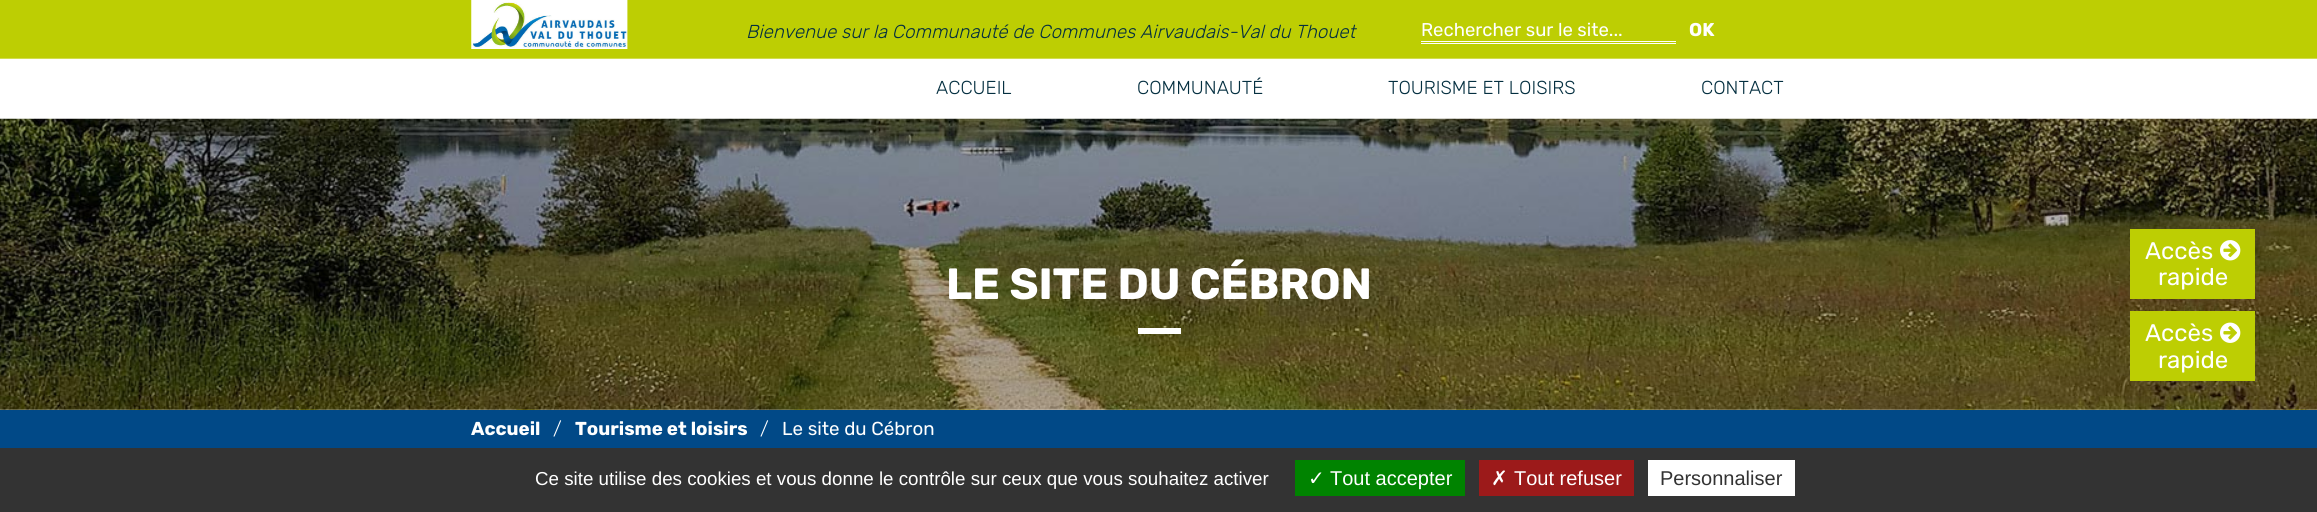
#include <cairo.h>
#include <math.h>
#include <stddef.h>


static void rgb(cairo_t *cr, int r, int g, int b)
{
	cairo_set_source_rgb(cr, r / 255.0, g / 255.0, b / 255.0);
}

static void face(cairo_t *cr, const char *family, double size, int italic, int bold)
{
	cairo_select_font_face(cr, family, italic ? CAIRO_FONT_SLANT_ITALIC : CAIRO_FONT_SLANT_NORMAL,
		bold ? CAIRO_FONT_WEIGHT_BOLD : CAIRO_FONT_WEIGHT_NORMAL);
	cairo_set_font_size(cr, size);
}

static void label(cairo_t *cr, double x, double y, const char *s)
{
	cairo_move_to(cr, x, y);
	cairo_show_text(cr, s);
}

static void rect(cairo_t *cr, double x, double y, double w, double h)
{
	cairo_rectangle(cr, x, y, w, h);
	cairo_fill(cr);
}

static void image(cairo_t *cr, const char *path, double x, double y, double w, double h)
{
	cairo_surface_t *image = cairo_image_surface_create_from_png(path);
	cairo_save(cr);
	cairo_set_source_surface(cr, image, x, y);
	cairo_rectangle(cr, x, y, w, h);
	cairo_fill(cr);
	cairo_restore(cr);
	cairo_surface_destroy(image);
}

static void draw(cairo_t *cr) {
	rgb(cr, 255, 255, 255);
	cairo_paint(cr);
	image(cr, "image2.png", 0, 118, 2317, 292);
	image(cr, "image0.png", 0, 0, 2317, 119);
	image(cr, "image1.png", 471, 0, 157, 49);
	face(cr, "Rubik Light", 18.75, 1, 0);
	rgb(cr, 4, 47, 64);
	label(cr, 746, 38, "Bienvenue sur la Communauté de Communes Airvaudais-Val du Thouet");
	rgb(cr, 255, 255, 255);
	rect(cr, 1421, 43, 255, 1);
	rect(cr, 1421, 41, 255, 1);
	face(cr, "Rubik", 18.5, 0, 0);
	label(cr, 1421, 36, "Rechercher sur le site...");
	face(cr, "Rubik", 18.5, 0, 1);
	label(cr, 1689, 36, "OK");
	face(cr, "Rubik Light", 18.75, 0, 0);
	rgb(cr, 4, 47, 64);
	label(cr, 936, 94, "ACCUEIL");
	label(cr, 1137, 94, "COMMUNAUTÉ");
	label(cr, 1388, 94, "TOURISME ET LOISIRS");
	label(cr, 1701, 94, "CONTACT");
	image(cr, "image3.png", 0, 409, 2317, 1);
	face(cr, "Rubik", 43.75, 0, 1);
	rgb(cr, 255, 255, 255);
	label(cr, 946, 299, "LE SITE DU CÉBRON");
	rect(cr, 1138, 328, 43, 6);
	rgb(cr, 1, 73, 135);
	rect(cr, 0, 410, 2317, 38);
	face(cr, "Rubik", 18.75, 0, 1);
	rgb(cr, 255, 255, 255);
	label(cr, 471, 435, "Accueil");
	face(cr, "Rubik Light", 18.75, 0, 0);
	label(cr, 553, 435, "/");
	face(cr, "Rubik", 18.75, 0, 1);
	label(cr, 575, 435, "Tourisme et loisirs");
	face(cr, "Rubik Light", 18.75, 0, 0);
	label(cr, 760, 435, "/");
	face(cr, "Rubik", 18.75, 0, 0);
	label(cr, 782, 435, "Le site du Cébron");
	rgb(cr, 189, 206, 3);
	rect(cr, 2130, 229, 125, 70);
	face(cr, "Rubik", 24, 0, 0);
	rgb(cr, 255, 255, 255);
	label(cr, 2145, 259, "Accès");
	image(cr, "image4.png", 2220, 240, 21, 21);
	label(cr, 2158, 285, "rapide");
	rgb(cr, 189, 206, 3);
	rect(cr, 2130, 311, 125, 70);
	rgb(cr, 255, 255, 255);
	label(cr, 2145, 341, "Accès");
	image(cr, "image5.png", 2220, 322, 21, 21);
	label(cr, 2158, 368, "rapide");
	rgb(cr, 51, 51, 51);
	rect(cr, 0, 448, 2317, 64);
	face(cr, "Liberation Sans", 18.75, 0, 0);
	rgb(cr, 255, 255, 255);
	label(cr, 535, 485, "Ce site utilise des cookies et vous donne le contrôle sur ceux que vous souhaitez activer");
	rgb(cr, 0, 131, 0);
	rect(cr, 1295, 460, 170, 36);
	face(cr, "DejaVu Sans", 20, 0, 0);
	rgb(cr, 255, 255, 255);
	label(cr, 1308, 485, "✓");
	face(cr, "Liberation Sans", 20, 0, 0);
	label(cr, 1330, 485, "Tout accepter");
	rgb(cr, 156, 26, 26);
	rect(cr, 1479, 460, 155, 36);
	face(cr, "DejaVu Sans", 20, 0, 0);
	rgb(cr, 255, 255, 255);
	label(cr, 1491, 485, "✗");
	face(cr, "Liberation Sans", 20, 0, 0);
	label(cr, 1514, 485, "Tout refuser");
	rect(cr, 1648, 460, 147, 36);
	rgb(cr, 51, 51, 51);
	label(cr, 1660, 485, "Personnaliser");
}

int main(void) {
	cairo_surface_t *surface = cairo_image_surface_create(CAIRO_FORMAT_RGB24, 2317, 512);
	cairo_t *cr = cairo_create(surface);
	cairo_font_options_t *options = cairo_font_options_create();
	cairo_font_options_set_hint_metrics(options, CAIRO_HINT_METRICS_OFF);
	cairo_font_options_set_hint_style(options, CAIRO_HINT_STYLE_NONE);
	cairo_set_font_options(cr, options);
	cairo_set_miter_limit(cr, 4);
	draw(cr);
	cairo_surface_write_to_png(surface, "render.png");
	cairo_font_options_destroy(options);
	cairo_destroy(cr);
	cairo_surface_destroy(surface);
	return 0;
}
